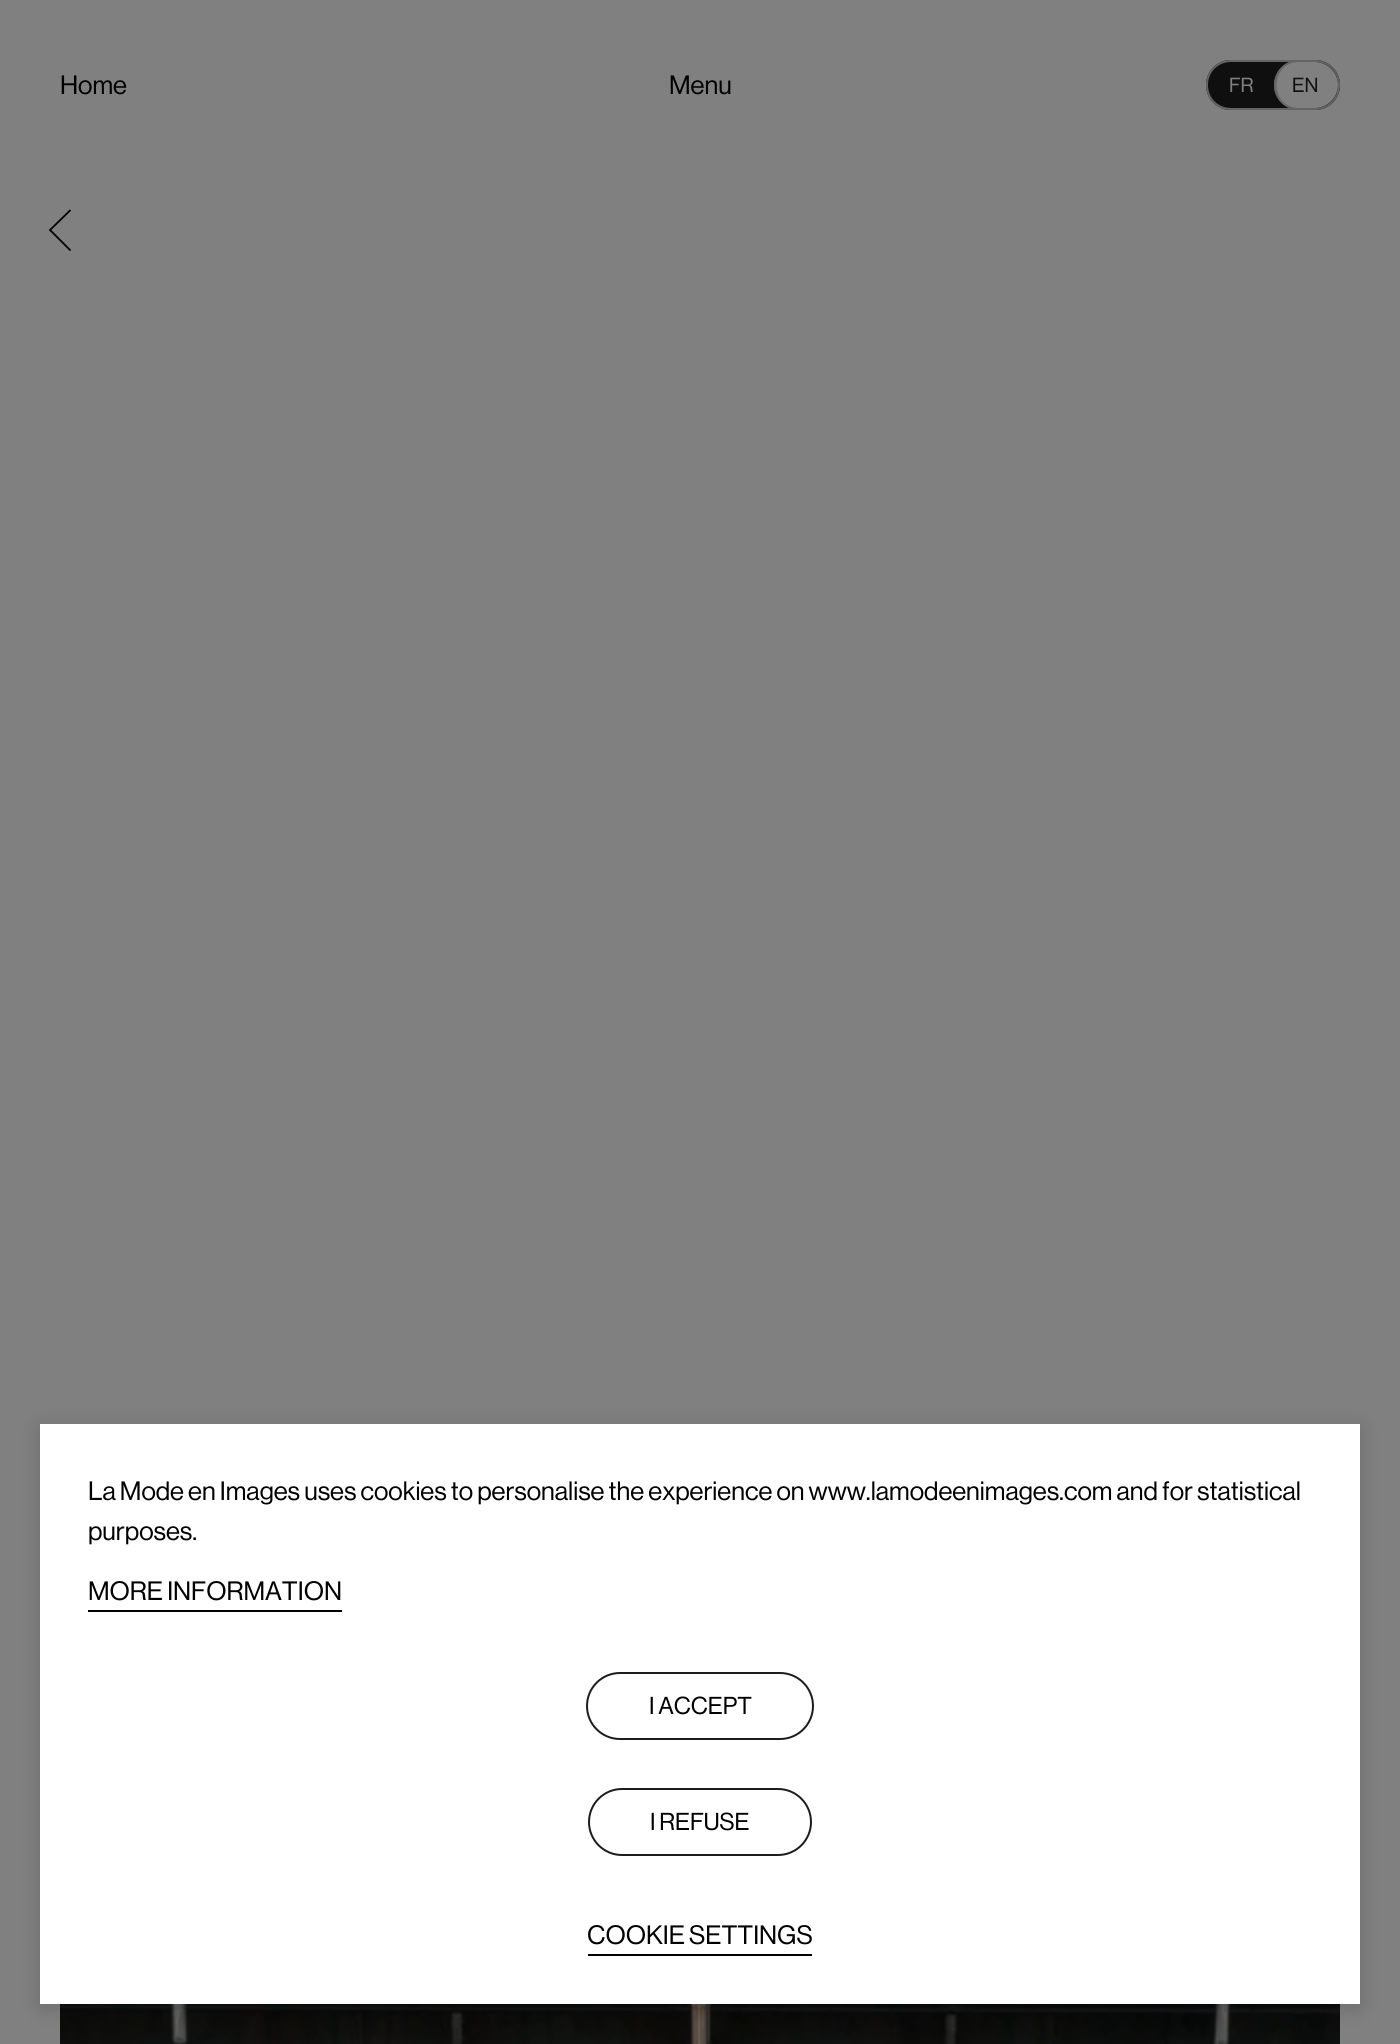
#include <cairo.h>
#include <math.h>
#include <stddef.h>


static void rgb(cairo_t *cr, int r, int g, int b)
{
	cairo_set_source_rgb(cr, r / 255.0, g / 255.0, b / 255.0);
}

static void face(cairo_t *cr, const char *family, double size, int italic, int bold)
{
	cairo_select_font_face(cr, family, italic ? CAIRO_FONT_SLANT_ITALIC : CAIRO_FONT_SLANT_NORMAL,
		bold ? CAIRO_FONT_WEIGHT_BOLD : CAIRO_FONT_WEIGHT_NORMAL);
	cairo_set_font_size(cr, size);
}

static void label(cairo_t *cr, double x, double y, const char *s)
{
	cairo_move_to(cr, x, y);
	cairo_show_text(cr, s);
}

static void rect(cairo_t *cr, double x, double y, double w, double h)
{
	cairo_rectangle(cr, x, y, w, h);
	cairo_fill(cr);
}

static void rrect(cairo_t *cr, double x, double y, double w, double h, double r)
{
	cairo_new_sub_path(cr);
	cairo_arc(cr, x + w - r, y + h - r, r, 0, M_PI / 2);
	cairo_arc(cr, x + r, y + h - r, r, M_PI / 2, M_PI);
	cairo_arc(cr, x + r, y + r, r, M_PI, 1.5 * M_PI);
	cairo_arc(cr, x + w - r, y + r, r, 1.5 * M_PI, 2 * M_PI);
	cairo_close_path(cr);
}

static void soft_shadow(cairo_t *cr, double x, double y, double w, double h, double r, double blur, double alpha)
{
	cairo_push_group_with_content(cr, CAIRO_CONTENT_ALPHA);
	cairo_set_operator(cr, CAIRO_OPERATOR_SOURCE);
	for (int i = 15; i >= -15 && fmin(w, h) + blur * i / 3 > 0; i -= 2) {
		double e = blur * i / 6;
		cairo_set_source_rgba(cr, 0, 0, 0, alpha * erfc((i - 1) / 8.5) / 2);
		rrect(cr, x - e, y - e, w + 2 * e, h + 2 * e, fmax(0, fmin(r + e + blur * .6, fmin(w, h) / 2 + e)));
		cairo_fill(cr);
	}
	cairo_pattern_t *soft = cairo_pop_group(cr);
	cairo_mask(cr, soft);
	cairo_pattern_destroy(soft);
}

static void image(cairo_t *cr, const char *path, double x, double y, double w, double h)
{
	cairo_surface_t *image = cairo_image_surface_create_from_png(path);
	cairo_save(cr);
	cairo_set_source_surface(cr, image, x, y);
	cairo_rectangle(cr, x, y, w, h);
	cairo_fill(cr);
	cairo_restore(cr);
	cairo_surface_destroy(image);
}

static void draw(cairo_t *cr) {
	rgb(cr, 128, 128, 128);
	cairo_paint(cr);
	face(cr, "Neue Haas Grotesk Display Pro", 26, 0, 0);
	rgb(cr, 0, 0, 0);
	label(cr, 60, 94, "Home");
	label(cr, 669, 94, "Menu");
	rgb(cr, 15, 15, 15);
	cairo_new_path(cr);
	cairo_move_to(cr, 1231, 60);
	cairo_line_to(cr, 1272, 60);
	cairo_line_to(cr, 1272, 110);
	cairo_line_to(cr, 1231, 110);
	cairo_curve_to(cr, 1217, 110, 1206, 99, 1206, 85);
	cairo_curve_to(cr, 1206, 71, 1217, 60, 1231, 60);
	cairo_close_path(cr);
	cairo_fill(cr);
	rgb(cr, 100, 100, 100);
	cairo_set_fill_rule(cr, CAIRO_FILL_RULE_EVEN_ODD);
	cairo_new_path(cr);
	cairo_move_to(cr, 1231, 60);
	cairo_line_to(cr, 1272, 60);
	cairo_line_to(cr, 1272, 110);
	cairo_line_to(cr, 1231, 110);
	cairo_curve_to(cr, 1217, 110, 1206, 99, 1206, 85);
	cairo_curve_to(cr, 1206, 71, 1217, 60, 1231, 60);
	cairo_close_path(cr);
	cairo_move_to(cr, 1231, 62);
	cairo_line_to(cr, 1272, 62);
	cairo_line_to(cr, 1272, 108);
	cairo_line_to(cr, 1231, 108);
	cairo_curve_to(cr, 1218, 108, 1208, 98, 1208, 85);
	cairo_curve_to(cr, 1208, 72, 1218, 62, 1231, 62);
	cairo_close_path(cr);
	cairo_fill(cr);
	face(cr, "Neue Haas Grotesk Display Pro", 20, 0, 0);
	rgb(cr, 128, 128, 128);
	label(cr, 1229, 92, "FR");
	rgb(cr, 15, 15, 15);
	cairo_new_path(cr);
	cairo_move_to(cr, 1272, 60);
	cairo_line_to(cr, 1315, 60);
	cairo_curve_to(cr, 1329, 60, 1340, 71, 1340, 85);
	cairo_curve_to(cr, 1340, 99, 1329, 110, 1315, 110);
	cairo_line_to(cr, 1272, 110);
	cairo_close_path(cr);
	cairo_fill(cr);
	rgb(cr, 100, 100, 100);
	cairo_new_path(cr);
	cairo_move_to(cr, 1272, 60);
	cairo_line_to(cr, 1315, 60);
	cairo_curve_to(cr, 1329, 60, 1340, 71, 1340, 85);
	cairo_curve_to(cr, 1340, 99, 1329, 110, 1315, 110);
	cairo_line_to(cr, 1272, 110);
	cairo_close_path(cr);
	cairo_move_to(cr, 1272, 62);
	cairo_line_to(cr, 1315, 62);
	cairo_curve_to(cr, 1328, 62, 1338, 72, 1338, 85);
	cairo_curve_to(cr, 1338, 98, 1328, 108, 1315, 108);
	cairo_line_to(cr, 1272, 108);
	cairo_close_path(cr);
	cairo_fill(cr);
	cairo_save(cr);
	cairo_set_fill_rule(cr, CAIRO_FILL_RULE_WINDING);
	cairo_new_path(cr);
	cairo_move_to(cr, 1272, 62);
	cairo_line_to(cr, 1315, 62);
	cairo_curve_to(cr, 1327.5, 62, 1338, 72.5, 1338, 85);
	cairo_curve_to(cr, 1338, 97.5, 1327.5, 108, 1315, 108);
	cairo_line_to(cr, 1272, 108);
	cairo_close_path(cr);
	cairo_clip(cr);
	rgb(cr, 128, 128, 128);
	rrect(cr, 1274, 60, 66, 50, 25);
	cairo_fill(cr);
	cairo_restore(cr);
	cairo_set_fill_rule(cr, CAIRO_FILL_RULE_WINDING);
	cairo_new_path(cr);
	cairo_move_to(cr, 1299, 62);
	cairo_curve_to(cr, 1269, 62, 1269, 108, 1299, 108);
	cairo_line_to(cr, 1289, 108);
	cairo_curve_to(cr, 1280, 104, 1274, 95, 1274, 85);
	cairo_curve_to(cr, 1274, 75, 1280, 66, 1289, 62);
	cairo_close_path(cr);
	cairo_fill(cr);
	rgb(cr, 15, 15, 15);
	label(cr, 1292, 92, "EN");
	cairo_new_path(cr);
	cairo_move_to(cr, 70.5, 250.5);
	cairo_line_to(cr, 50, 230);
	cairo_line_to(cr, 70.5, 210);
	rgb(cr, 0, 0, 0);
	cairo_set_line_width(cr, 1.8);
	cairo_stroke(cr);
	image(cr, "image0.png", 60, 2004, 1280, 40);
	rgb(cr, 0, 0, 0);
	soft_shadow(cr, 40, 1428, 1320, 580, 0, 10, 0.15);
	rgb(cr, 255, 255, 255);
	rect(cr, 40, 1424, 1320, 580);
	face(cr, "Neue Haas Grotesk Display Pro", 26, 0, 0);
	rgb(cr, 0, 0, 0);
	label(cr, 88, 1500, "La Mode en Images uses cookies to personalise the experience on www.lamodeenimages.com and for statistical");
	label(cr, 88, 1540, "purposes.");
	label(cr, 88, 1600, "MORE INFORMATION");
	rect(cr, 88, 1610, 254, 2);
	rrect(cr, 587, 1673, 226, 66, 33);
	rgb(cr, 29, 29, 29);
	cairo_set_line_width(cr, 2);
	cairo_stroke(cr);
	face(cr, "Neue Haas Grotesk Display Pro", 24, 0, 0);
	rgb(cr, 0, 0, 0);
	label(cr, 649, 1714, "I ACCEPT");
	rrect(cr, 589, 1789, 222, 66, 33);
	rgb(cr, 29, 29, 29);
	cairo_stroke(cr);
	rgb(cr, 0, 0, 0);
	label(cr, 650, 1830, "I REFUSE");
	face(cr, "Neue Haas Grotesk Display Pro", 26, 0, 0);
	label(cr, 587, 1944, "COOKIE SETTINGS");
	rect(cr, 588, 1954, 224, 2);
}

int main(void) {
	cairo_surface_t *surface = cairo_image_surface_create(CAIRO_FORMAT_RGB24, 1400, 2044);
	cairo_t *cr = cairo_create(surface);
	cairo_font_options_t *options = cairo_font_options_create();
	cairo_font_options_set_hint_metrics(options, CAIRO_HINT_METRICS_OFF);
	cairo_font_options_set_hint_style(options, CAIRO_HINT_STYLE_NONE);
	cairo_set_font_options(cr, options);
	cairo_set_miter_limit(cr, 4);
	draw(cr);
	cairo_surface_write_to_png(surface, "render.png");
	cairo_font_options_destroy(options);
	cairo_destroy(cr);
	cairo_surface_destroy(surface);
	return 0;
}
